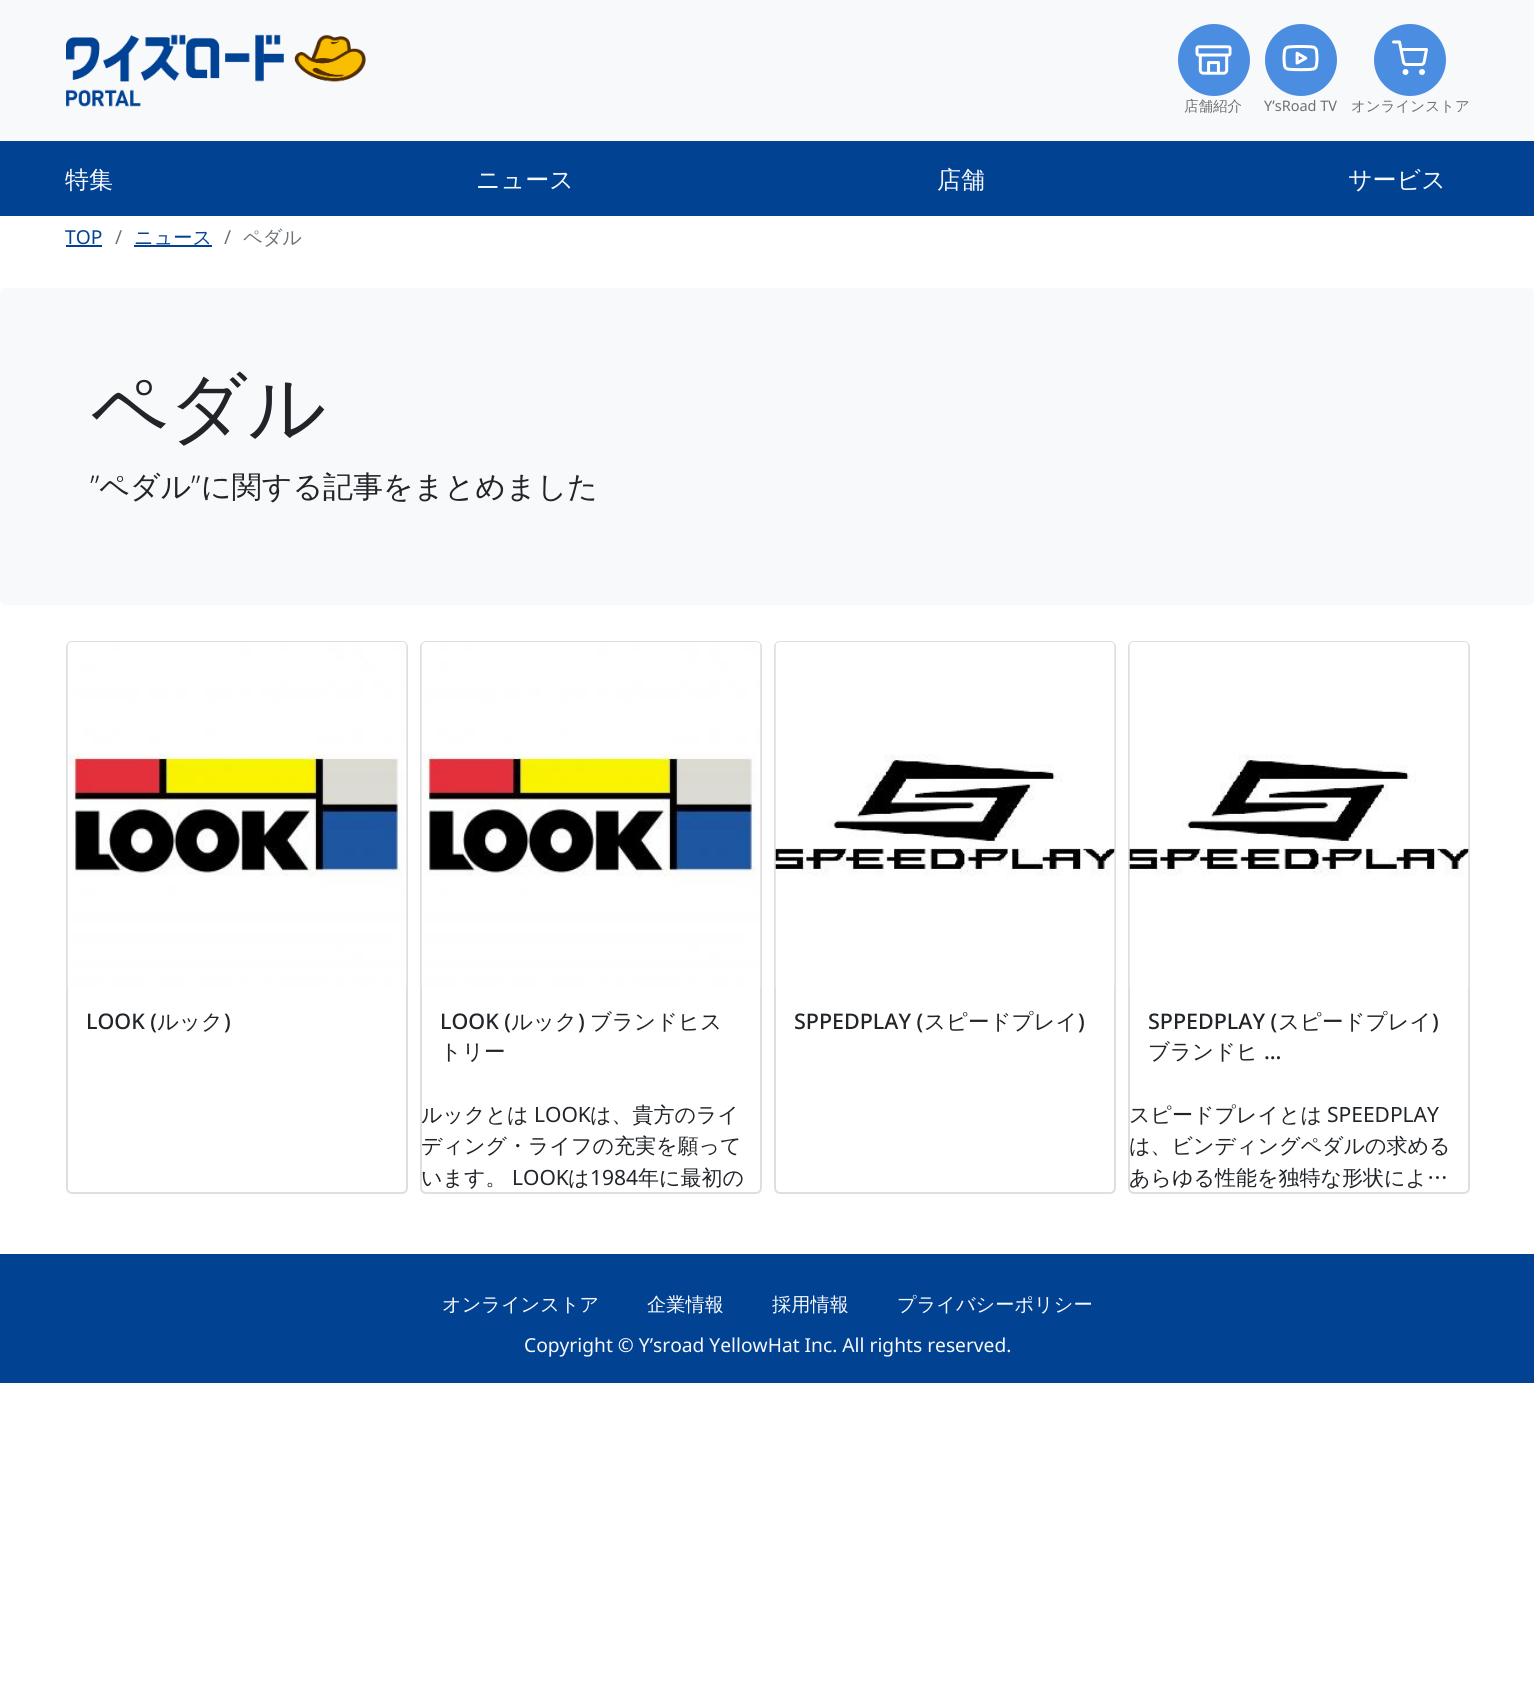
#include <cairo.h>
#include <math.h>
#include <stddef.h>


static void rgb(cairo_t *cr, int r, int g, int b)
{
	cairo_set_source_rgb(cr, r / 255.0, g / 255.0, b / 255.0);
}

static void face(cairo_t *cr, const char *family, double size, int italic, int bold)
{
	cairo_select_font_face(cr, family, italic ? CAIRO_FONT_SLANT_ITALIC : CAIRO_FONT_SLANT_NORMAL,
		bold ? CAIRO_FONT_WEIGHT_BOLD : CAIRO_FONT_WEIGHT_NORMAL);
	cairo_set_font_size(cr, size);
}

static void label(cairo_t *cr, double x, double y, const char *s)
{
	cairo_move_to(cr, x, y);
	cairo_show_text(cr, s);
}

static void rect(cairo_t *cr, double x, double y, double w, double h)
{
	cairo_rectangle(cr, x, y, w, h);
	cairo_fill(cr);
}

static void rrect(cairo_t *cr, double x, double y, double w, double h, double r)
{
	cairo_new_sub_path(cr);
	cairo_arc(cr, x + w - r, y + h - r, r, 0, M_PI / 2);
	cairo_arc(cr, x + r, y + h - r, r, M_PI / 2, M_PI);
	cairo_arc(cr, x + r, y + r, r, M_PI, 1.5 * M_PI);
	cairo_arc(cr, x + w - r, y + r, r, 1.5 * M_PI, 2 * M_PI);
	cairo_close_path(cr);
}

static void image(cairo_t *cr, const char *path, double x, double y, double w, double h)
{
	cairo_surface_t *image = cairo_image_surface_create_from_png(path);
	cairo_save(cr);
	cairo_set_source_surface(cr, image, x, y);
	cairo_rectangle(cr, x, y, w, h);
	cairo_fill(cr);
	cairo_restore(cr);
	cairo_surface_destroy(image);
}

static void draw(cairo_t *cr) {
	rgb(cr, 255, 255, 255);
	cairo_paint(cr);
	rgb(cr, 248, 249, 250);
	rect(cr, 0, 0, 1534, 141);
	image(cr, "image0.png", 66, 34, 300, 73);
	rgb(cr, 74, 141, 225);
	cairo_arc(cr, 1214, 60, 36, 0, 2 * M_PI);
	cairo_fill(cr);
	image(cr, "image1.png", 1195, 45, 37, 30);
	face(cr, "WenQuanYi Zen Hei Medium", 14.5, 0, 0);
	rgb(cr, 112, 112, 113);
	label(cr, 1184, 111, "店舗紹介");
	rgb(cr, 74, 141, 225);
	cairo_new_path(cr);
	cairo_arc(cr, 1301, 60, 36, 0, 2 * M_PI);
	cairo_fill(cr);
	image(cr, "image2.png", 1282, 45, 37, 27);
	face(cr, "Noto Sans", 14.5, 0, 0);
	rgb(cr, 112, 112, 113);
	label(cr, 1264, 111, "Y’sRoad TV");
	rgb(cr, 74, 141, 225);
	cairo_new_path(cr);
	cairo_arc(cr, 1410, 60, 36, 0, 2 * M_PI);
	cairo_fill(cr);
	image(cr, "image3.png", 1392, 40, 36, 35);
	face(cr, "WenQuanYi Zen Hei Medium", 14.5, 0, 0);
	rgb(cr, 112, 112, 113);
	label(cr, 1351, 111, "オンラインストア");
	rgb(cr, 1, 66, 147);
	rect(cr, 0, 141, 1534, 75);
	face(cr, "WenQuanYi Zen Hei Medium", 24, 0, 0);
	rgb(cr, 248, 249, 250);
	label(cr, 65, 188, "特集");
	label(cr, 476, 188, "ニュース");
	label(cr, 937, 188, "店舗");
	label(cr, 1348, 188, "サービス");
	face(cr, "Noto Sans", 19.2, 0, 0);
	rgb(cr, 1, 66, 147);
	label(cr, 65, 244, "TOP");
	rect(cr, 66, 245, 36, 2);
	rgb(cr, 108, 117, 125);
	label(cr, 115, 244, "/");
	face(cr, "WenQuanYi Zen Hei Medium", 19.2, 0, 0);
	rgb(cr, 1, 66, 147);
	label(cr, 134, 244, "ニュース");
	rect(cr, 134, 245, 78, 2);
	face(cr, "Noto Sans", 19.2, 0, 0);
	rgb(cr, 108, 117, 125);
	label(cr, 224, 244, "/");
	face(cr, "WenQuanYi Zen Hei Medium", 19.2, 0, 0);
	label(cr, 243, 244, "ペダル");
	rgb(cr, 248, 249, 250);
	rrect(cr, 0, 288, 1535, 317, 6);
	cairo_fill(cr);
	face(cr, "WenQuanYi Zen Hei Medium", 77, 0, 0);
	rgb(cr, 33, 37, 41);
	label(cr, 90, 434, "ペダル");
	face(cr, "Noto Sans Light", 30, 0, 0);
	label(cr, 90, 497, "”");
	face(cr, "WenQuanYi Zen Hei Medium", 30, 0, 0);
	label(cr, 99, 497, "ペダル");
	face(cr, "Noto Sans Light", 30, 0, 0);
	label(cr, 191, 497, "”");
	face(cr, "WenQuanYi Zen Hei Medium", 30, 0, 0);
	label(cr, 201, 497, "に関する記事をまとめました");
	rrect(cr, 67, 642, 340, 551, 5);
	rgb(cr, 223, 223, 223);
	cairo_stroke(cr);
	image(cr, "image4.png", 67, 642, 340, 345);
	face(cr, "Noto Sans Medium", 21.5, 0, 0);
	rgb(cr, 33, 37, 41);
	label(cr, 86, 1029, "LOOK (");
	face(cr, "WenQuanYi Zen Hei Medium", 21.5, 0, 0);
	label(cr, 157, 1029, "ルック");
	face(cr, "Noto Sans Medium", 21.5, 0, 0);
	label(cr, 224, 1029, ")");
	rrect(cr, 421, 642, 340, 551, 5);
	rgb(cr, 223, 223, 223);
	cairo_stroke(cr);
	image(cr, "image4.png", 421, 642, 340, 345);
	rgb(cr, 33, 37, 41);
	label(cr, 440, 1029, "LOOK (");
	face(cr, "WenQuanYi Zen Hei Medium", 21.5, 0, 0);
	label(cr, 511, 1029, "ルック");
	face(cr, "Noto Sans Medium", 21.5, 0, 0);
	label(cr, 578, 1029, ")");
	face(cr, "WenQuanYi Zen Hei Medium", 21.5, 0, 0);
	label(cr, 590, 1029, "ブランドヒス");
	label(cr, 440, 1059, "トリー");
	face(cr, "WenQuanYi Zen Hei Medium", 21, 0, 0);
	label(cr, 421, 1122, "ルックとは");
	face(cr, "Noto Sans", 21, 0, 0);
	label(cr, 534, 1122, "LOOK");
	face(cr, "WenQuanYi Zen Hei Medium", 21, 0, 0);
	label(cr, 590, 1122, "は、貴方のライ");
	label(cr, 421, 1153, "ディング・ライフの充実を願って");
	label(cr, 421, 1185, "います。");
	face(cr, "Noto Sans", 21, 0, 0);
	label(cr, 512, 1185, "LOOK");
	face(cr, "WenQuanYi Zen Hei Medium", 21, 0, 0);
	label(cr, 568, 1185, "は");
	face(cr, "Noto Sans", 21, 0, 0);
	label(cr, 590, 1185, "1984");
	face(cr, "WenQuanYi Zen Hei Medium", 21, 0, 0);
	label(cr, 638, 1185, "年に最初の");
	rrect(cr, 775, 642, 340, 551, 5);
	rgb(cr, 223, 223, 223);
	cairo_stroke(cr);
	image(cr, "image5.png", 775, 642, 340, 345);
	face(cr, "Noto Sans Medium", 21.5, 0, 0);
	rgb(cr, 33, 37, 41);
	label(cr, 794, 1029, "SPPEDPLAY (");
	face(cr, "WenQuanYi Zen Hei Medium", 21.5, 0, 0);
	label(cr, 924, 1029, "スピードプレイ");
	face(cr, "Noto Sans Medium", 21.5, 0, 0);
	label(cr, 1078, 1029, ")");
	rrect(cr, 1129, 642, 340, 551, 5);
	rgb(cr, 223, 223, 223);
	cairo_stroke(cr);
	image(cr, "image5.png", 1129, 642, 340, 345);
	rgb(cr, 33, 37, 41);
	label(cr, 1148, 1029, "SPPEDPLAY (");
	face(cr, "WenQuanYi Zen Hei Medium", 21.5, 0, 0);
	label(cr, 1278, 1029, "スピードプレイ");
	face(cr, "Noto Sans Medium", 21.5, 0, 0);
	label(cr, 1432, 1029, ")");
	face(cr, "WenQuanYi Zen Hei Medium", 21.5, 0, 0);
	label(cr, 1148, 1059, "ブランドヒ");
	face(cr, "Noto Sans Medium", 21.5, 0, 0);
	label(cr, 1264, 1059, "…");
	face(cr, "WenQuanYi Zen Hei Medium", 21, 0, 0);
	label(cr, 1129, 1122, "スピードプレイとは");
	face(cr, "Noto Sans", 21, 0, 0);
	label(cr, 1327, 1122, "SPEEDPLAY");
	face(cr, "WenQuanYi Zen Hei Medium", 21, 0, 0);
	label(cr, 1129, 1153, "は、ビンディングペダルの求める");
	label(cr, 1129, 1185, "あらゆる性能を独特な形状によ…");
	rgb(cr, 1, 66, 147);
	rect(cr, 0, 1254, 1534, 129);
	face(cr, "WenQuanYi Zen Hei Medium", 19.2, 0, 0);
	rgb(cr, 248, 249, 250);
	label(cr, 442, 1311, "オンラインストア");
	label(cr, 647, 1311, "企業情報");
	label(cr, 772, 1311, "採用情報");
	label(cr, 897, 1311, "プライバシーポリシー");
	face(cr, "Noto Sans", 19.2, 0, 0);
	label(cr, 524, 1352, "Copyright © Y’sroad YellowHat Inc. All rights reserved.");
}

int main(void) {
	cairo_surface_t *surface = cairo_image_surface_create(CAIRO_FORMAT_RGB24, 1534, 1703);
	cairo_t *cr = cairo_create(surface);
	cairo_font_options_t *options = cairo_font_options_create();
	cairo_font_options_set_hint_metrics(options, CAIRO_HINT_METRICS_OFF);
	cairo_font_options_set_hint_style(options, CAIRO_HINT_STYLE_NONE);
	cairo_set_font_options(cr, options);
	cairo_set_miter_limit(cr, 4);
	draw(cr);
	cairo_surface_write_to_png(surface, "render.png");
	cairo_font_options_destroy(options);
	cairo_destroy(cr);
	cairo_surface_destroy(surface);
	return 0;
}
